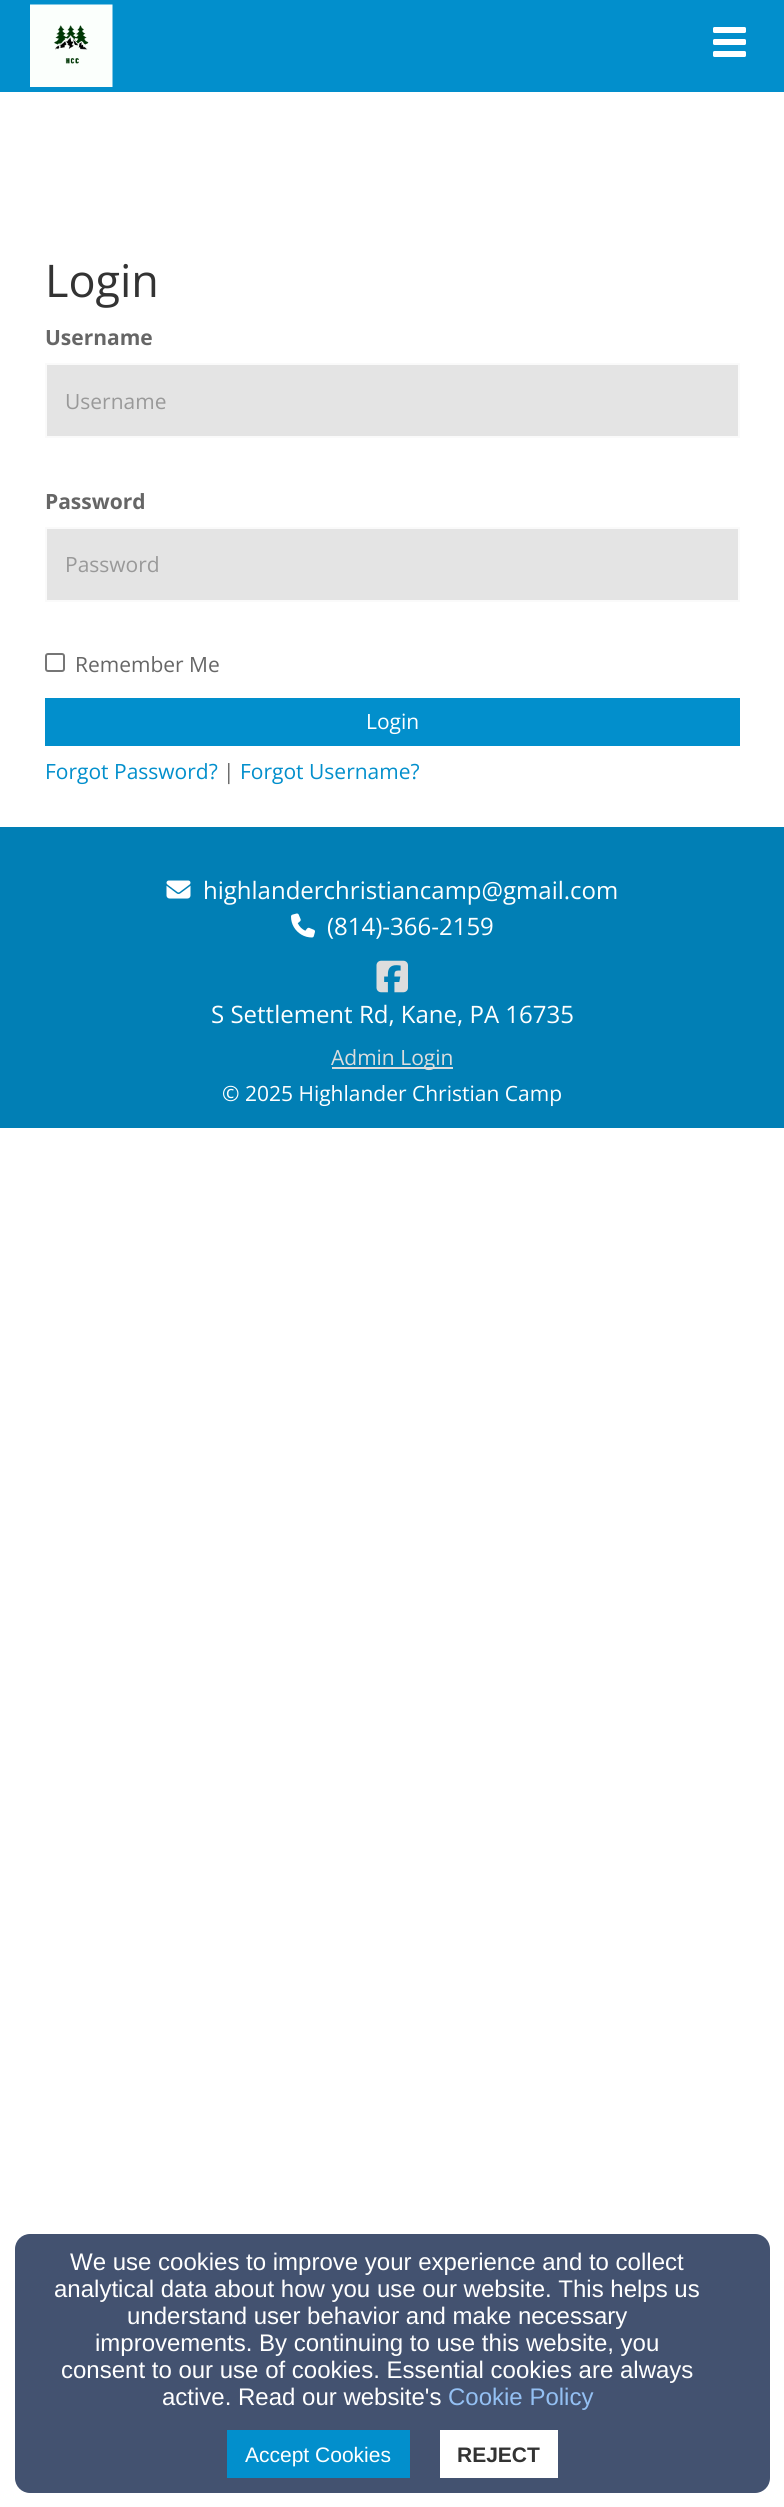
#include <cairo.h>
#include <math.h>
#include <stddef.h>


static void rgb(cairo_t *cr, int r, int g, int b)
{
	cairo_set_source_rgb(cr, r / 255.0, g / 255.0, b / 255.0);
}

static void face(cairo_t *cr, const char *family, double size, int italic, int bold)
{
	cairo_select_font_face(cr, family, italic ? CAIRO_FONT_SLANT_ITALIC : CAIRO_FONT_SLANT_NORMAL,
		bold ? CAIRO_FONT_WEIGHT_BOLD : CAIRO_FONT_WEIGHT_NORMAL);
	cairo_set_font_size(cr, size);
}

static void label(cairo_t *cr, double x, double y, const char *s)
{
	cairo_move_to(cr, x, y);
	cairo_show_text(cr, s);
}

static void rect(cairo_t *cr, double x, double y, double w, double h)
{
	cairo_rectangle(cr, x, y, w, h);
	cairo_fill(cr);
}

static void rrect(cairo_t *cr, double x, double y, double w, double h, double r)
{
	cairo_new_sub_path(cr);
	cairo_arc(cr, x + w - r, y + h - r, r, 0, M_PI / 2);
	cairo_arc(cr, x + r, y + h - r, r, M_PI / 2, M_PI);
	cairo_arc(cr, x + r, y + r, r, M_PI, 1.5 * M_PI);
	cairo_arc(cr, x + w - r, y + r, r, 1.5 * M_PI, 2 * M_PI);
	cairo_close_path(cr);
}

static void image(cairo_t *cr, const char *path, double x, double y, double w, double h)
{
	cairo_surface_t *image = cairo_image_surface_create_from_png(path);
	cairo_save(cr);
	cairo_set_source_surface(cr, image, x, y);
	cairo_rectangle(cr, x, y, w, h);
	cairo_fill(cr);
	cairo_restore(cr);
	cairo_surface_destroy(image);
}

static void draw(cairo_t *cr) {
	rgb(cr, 255, 255, 255);
	cairo_paint(cr);
	rgb(cr, 2, 143, 204);
	rect(cr, 0, 0, 784, 92);
	image(cr, "image0.png", 30, 4, 83, 83);
	rgb(cr, 255, 255, 255);
	rrect(cr, 713, 27, 33, 6, 1.5);
	cairo_fill(cr);
	rrect(cr, 713, 39, 33, 6, 1.5);
	cairo_fill(cr);
	rrect(cr, 713, 51, 33, 6, 1.5);
	cairo_fill(cr);
	face(cr, "Open Sans", 45, 0, 0);
	rgb(cr, 51, 51, 51);
	label(cr, 45, 297, "Login");
	face(cr, "Open Sans", 21, 0, 1);
	rgb(cr, 102, 102, 102);
	label(cr, 45, 345, "Username");
	rgb(cr, 228, 228, 228);
	cairo_rectangle(cr, 46, 364, 693, 73);
	cairo_fill_preserve(cr);
	rgb(cr, 250, 250, 250);
	cairo_stroke(cr);
	face(cr, "Open Sans", 21, 0, 0);
	rgb(cr, 153, 153, 153);
	label(cr, 65, 409, "Username");
	face(cr, "Open Sans", 21, 0, 1);
	rgb(cr, 102, 102, 102);
	label(cr, 45, 509, "Password");
	rgb(cr, 228, 228, 228);
	cairo_rectangle(cr, 46, 528, 693, 73);
	cairo_fill_preserve(cr);
	rgb(cr, 250, 250, 250);
	cairo_stroke(cr);
	face(cr, "Open Sans", 21, 0, 0);
	rgb(cr, 153, 153, 153);
	label(cr, 65, 572, "Password");
	rrect(cr, 46, 654, 18, 17, 2);
	rgb(cr, 118, 118, 118);
	cairo_stroke(cr);
	rgb(cr, 102, 102, 102);
	label(cr, 75, 672, "Remember Me");
	rgb(cr, 2, 143, 204);
	rect(cr, 45, 698, 695, 48);
	rgb(cr, 255, 255, 255);
	label(cr, 366, 729, "Login");
	rgb(cr, 2, 143, 204);
	label(cr, 45, 779, "Forgot Password?");
	rgb(cr, 102, 102, 102);
	label(cr, 223, 779, "|");
	rgb(cr, 2, 143, 204);
	label(cr, 240, 779, "Forgot Username?");
	rgb(cr, 1, 127, 181);
	rect(cr, 0, 827, 784, 301);
	image(cr, "image1.png", 166, 880, 25, 19);
	face(cr, "Open Sans", 24, 0, 0);
	rgb(cr, 255, 255, 255);
	label(cr, 203, 899, "highlanderchristiancamp@gmail.com");
	image(cr, "image2.png", 291, 913, 24, 25);
	label(cr, 327, 935, "(814)-366-2159");
	image(cr, "image3.png", 376, 960, 32, 33);
	label(cr, 211, 1023, "S Settlement Rd, Kane, PA 16735");
	rgb(cr, 221, 221, 221);
	rect(cr, 332, 1067, 121, 2);
	face(cr, "Open Sans", 21, 0, 0);
	label(cr, 331, 1065, "Admin Login");
	rgb(cr, 255, 255, 255);
	label(cr, 222, 1101, "© 2025 Highlander Christian Camp");
	rgb(cr, 67, 82, 112);
	rrect(cr, 15, 2234, 755, 259, 15);
	cairo_fill(cr);
	face(cr, "Liberation Sans", 24, 0, 0);
	rgb(cr, 255, 255, 255);
	label(cr, 70, 2270, "We use cookies to improve your experience and to collect");
	label(cr, 54, 2297, "analytical data about how you use our website. This helps us");
	label(cr, 127, 2324, "understand user behavior and make necessary");
	label(cr, 95, 2351, "improvements. By continuing to use this website, you");
	label(cr, 61, 2378, "consent to our use of cookies. Essential cookies are always");
	label(cr, 162, 2405, "active. Read our website's");
	rgb(cr, 148, 192, 243);
	label(cr, 448, 2405, "Cookie Policy");
	rgb(cr, 2, 143, 204);
	rect(cr, 227, 2430, 183, 48);
	face(cr, "Liberation Sans", 21, 0, 0);
	rgb(cr, 255, 255, 255);
	label(cr, 245, 2462, "Accept Cookies");
	rect(cr, 440, 2430, 118, 48);
	face(cr, "Liberation Sans", 21, 0, 1);
	rgb(cr, 51, 51, 51);
	label(cr, 457, 2462, "REJECT");
}

int main(void) {
	cairo_surface_t *surface = cairo_image_surface_create(CAIRO_FORMAT_RGB24, 784, 2507);
	cairo_t *cr = cairo_create(surface);
	cairo_font_options_t *options = cairo_font_options_create();
	cairo_font_options_set_hint_metrics(options, CAIRO_HINT_METRICS_OFF);
	cairo_font_options_set_hint_style(options, CAIRO_HINT_STYLE_NONE);
	cairo_set_font_options(cr, options);
	cairo_set_miter_limit(cr, 4);
	draw(cr);
	cairo_surface_write_to_png(surface, "render.png");
	cairo_font_options_destroy(options);
	cairo_destroy(cr);
	cairo_surface_destroy(surface);
	return 0;
}
